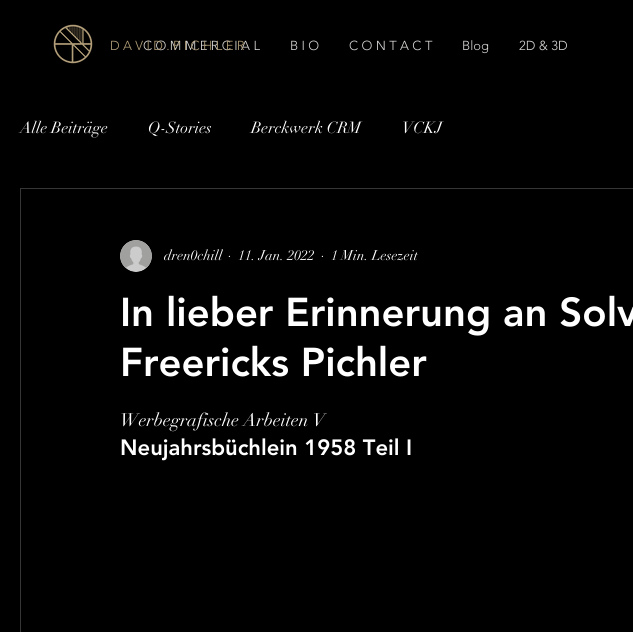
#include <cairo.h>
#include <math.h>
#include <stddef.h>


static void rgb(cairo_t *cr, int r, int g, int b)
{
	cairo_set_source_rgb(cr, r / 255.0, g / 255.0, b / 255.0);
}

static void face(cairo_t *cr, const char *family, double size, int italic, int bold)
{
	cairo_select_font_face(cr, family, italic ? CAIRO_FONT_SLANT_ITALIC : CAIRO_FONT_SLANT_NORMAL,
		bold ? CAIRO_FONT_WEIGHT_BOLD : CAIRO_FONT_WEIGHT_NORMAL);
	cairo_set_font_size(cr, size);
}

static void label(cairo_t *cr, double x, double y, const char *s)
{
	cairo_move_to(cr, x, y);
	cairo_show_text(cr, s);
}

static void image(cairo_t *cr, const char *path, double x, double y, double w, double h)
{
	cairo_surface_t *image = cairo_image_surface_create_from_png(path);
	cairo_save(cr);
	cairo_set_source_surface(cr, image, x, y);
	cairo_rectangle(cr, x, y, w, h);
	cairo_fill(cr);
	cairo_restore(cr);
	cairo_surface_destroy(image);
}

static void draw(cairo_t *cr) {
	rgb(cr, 0, 0, 0);
	cairo_paint(cr);
	image(cr, "image0.png", 53, 24, 40, 40);
	face(cr, "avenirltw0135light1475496 Light", 13, 0, 0);
	rgb(cr, 219, 217, 215);
	label(cr, 143, 50, "C O M M E R C I A L");
	rgb(cr, 179, 159, 121);
	label(cr, 110, 50, "D A V I D . P I C H L E R");
	rgb(cr, 219, 217, 215);
	label(cr, 290, 50, "B I O");
	label(cr, 349, 50, "C O N T A C T");
	label(cr, 462, 50, "Blog");
	label(cr, 519, 50, "2D & 3D");
	face(cr, "didot", 16, 0, 0);
	rgb(cr, 255, 255, 255);
	label(cr, 20, 133, "Alle Beiträge");
	label(cr, 148, 133, "Q-Stories");
	label(cr, 251, 133, "Berckwerk CRM");
	label(cr, 402, 133, "VCKJ");
	cairo_rectangle(cr, 20.5, 188.5, 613, 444);
	rgb(cr, 56, 54, 53);
	cairo_set_line_width(cr, 1);
	cairo_stroke(cr);
	image(cr, "image1.png", 120, 240, 32, 32);
	face(cr, "didot", 14, 0, 0);
	rgb(cr, 255, 255, 255);
	label(cr, 164, 260, "dren0chill");
	label(cr, 228, 260, "·");
	label(cr, 238, 260, "11. Jan. 2022");
	label(cr, 321, 260, "·");
	label(cr, 331, 260, "1 Min. Lesezeit");
	face(cr, "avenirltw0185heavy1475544 Black", 40, 0, 0);
	label(cr, 120, 326, "In lieber Erinnerung an Solv");
	label(cr, 120, 376, "Freericks Pichler");
	face(cr, "didot", 18, 0, 0);
	label(cr, 120, 426, "Werbegrafische Arbeiten V");
	face(cr, "avenirltw0185heavy1475544 Black", 22, 0, 0);
	label(cr, 120, 455, "Neujahrsbüchlein 1958 Teil I");
}

int main(void) {
	cairo_surface_t *surface = cairo_image_surface_create(CAIRO_FORMAT_RGB24, 633, 632);
	cairo_t *cr = cairo_create(surface);
	cairo_font_options_t *options = cairo_font_options_create();
	cairo_font_options_set_hint_metrics(options, CAIRO_HINT_METRICS_OFF);
	cairo_font_options_set_hint_style(options, CAIRO_HINT_STYLE_NONE);
	cairo_set_font_options(cr, options);
	cairo_set_miter_limit(cr, 4);
	draw(cr);
	cairo_surface_write_to_png(surface, "render.png");
	cairo_font_options_destroy(options);
	cairo_destroy(cr);
	cairo_surface_destroy(surface);
	return 0;
}
